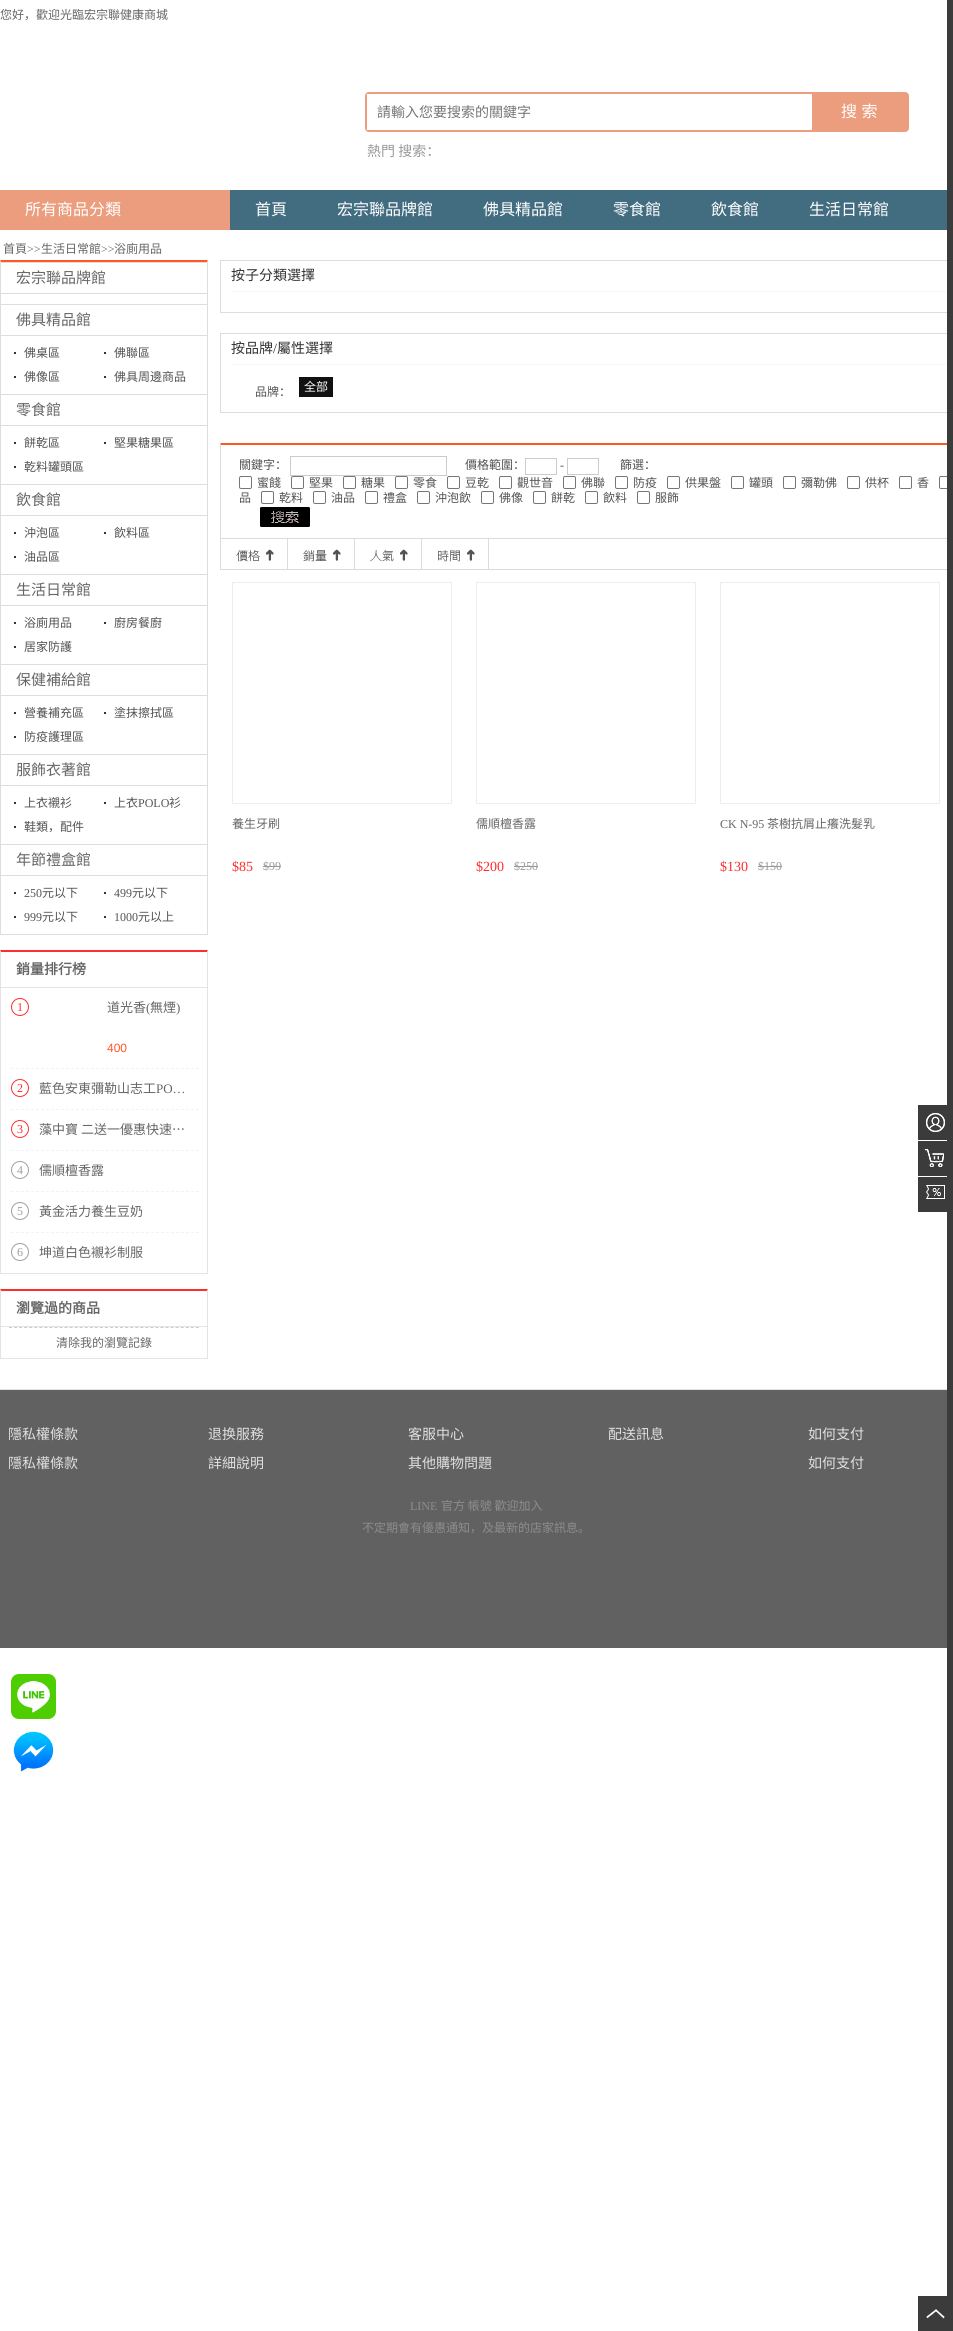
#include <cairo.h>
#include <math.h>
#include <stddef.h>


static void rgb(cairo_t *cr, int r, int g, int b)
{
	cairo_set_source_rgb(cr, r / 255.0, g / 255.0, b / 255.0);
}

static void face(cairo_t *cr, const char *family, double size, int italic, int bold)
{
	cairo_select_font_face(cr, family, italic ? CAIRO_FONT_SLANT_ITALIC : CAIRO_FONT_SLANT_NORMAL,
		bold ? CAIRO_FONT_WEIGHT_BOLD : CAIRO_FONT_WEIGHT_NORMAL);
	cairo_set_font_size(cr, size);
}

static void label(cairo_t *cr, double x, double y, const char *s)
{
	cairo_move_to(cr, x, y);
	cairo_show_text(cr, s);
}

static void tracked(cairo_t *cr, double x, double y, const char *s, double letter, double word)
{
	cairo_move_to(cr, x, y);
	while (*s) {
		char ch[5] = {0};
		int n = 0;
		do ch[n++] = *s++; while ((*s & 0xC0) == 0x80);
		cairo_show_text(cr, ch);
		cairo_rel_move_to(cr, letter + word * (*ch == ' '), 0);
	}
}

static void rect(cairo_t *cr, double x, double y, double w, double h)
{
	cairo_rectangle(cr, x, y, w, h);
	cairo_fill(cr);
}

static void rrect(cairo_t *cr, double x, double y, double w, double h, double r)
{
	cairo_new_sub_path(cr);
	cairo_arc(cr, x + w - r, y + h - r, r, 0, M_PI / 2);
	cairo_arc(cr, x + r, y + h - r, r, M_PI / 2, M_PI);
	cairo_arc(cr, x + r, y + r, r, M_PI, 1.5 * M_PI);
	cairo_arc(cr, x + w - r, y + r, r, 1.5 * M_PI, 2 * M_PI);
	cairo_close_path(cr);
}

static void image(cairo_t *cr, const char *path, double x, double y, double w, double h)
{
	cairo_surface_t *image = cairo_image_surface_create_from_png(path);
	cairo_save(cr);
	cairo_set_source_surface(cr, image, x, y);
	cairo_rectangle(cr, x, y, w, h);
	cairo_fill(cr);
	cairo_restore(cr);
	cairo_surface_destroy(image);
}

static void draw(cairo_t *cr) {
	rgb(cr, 255, 255, 255);
	cairo_paint(cr);
	face(cr, "Noto Sans CJK SC", 12, 0, 0);
	rgb(cr, 102, 102, 102);
	label(cr, 0, 19, "您好，歡迎光臨宏宗聯健康商城");
	rrect(cr, 366, 93, 542, 38, 3);
	rgb(cr, 236, 157, 125);
	cairo_stroke(cr);
	rgb(cr, 255, 255, 255);
	rect(cr, 367, 94, 2, 36);
	face(cr, "Noto Sans CJK SC", 14, 0, 0);
	rgb(cr, 117, 117, 117);
	label(cr, 377, 117, "請輸入您要搜索的關鍵字");
	rgb(cr, 236, 157, 125);
	rect(cr, 812, 94, 95, 36);
	face(cr, "Noto Sans CJK SC", 16, 0, 0);
	rgb(cr, 255, 255, 255);
	tracked(cr, 841, 117, "搜 索", 0, 1);
	face(cr, "Noto Sans CJK SC", 14, 0, 0);
	rgb(cr, 153, 153, 153);
	label(cr, 367, 156, "熱門 搜索：");
	rgb(cr, 66, 108, 128);
	rect(cr, 230, 190, 717, 40);
	rgb(cr, 236, 157, 125);
	rect(cr, 0, 190, 230, 40);
	face(cr, "Noto Sans CJK SC", 16, 0, 0);
	rgb(cr, 255, 255, 255);
	label(cr, 25, 215, "所有商品分類");
	label(cr, 255, 215, "首頁");
	label(cr, 337, 215, "宏宗聯品牌館");
	label(cr, 483, 215, "佛具精品館");
	label(cr, 613, 215, "零食館");
	label(cr, 711, 215, "飲食館");
	label(cr, 809, 215, "生活日常館");
	cairo_rectangle(cr, 220.5, 260.5, 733, 52);
	rgb(cr, 221, 221, 221);
	cairo_set_line_width(cr, 1);
	cairo_stroke(cr);
	rgb(cr, 247, 247, 247);
	rect(cr, 231, 291, 722, 1);
	cairo_rectangle(cr, 220.5, 333.5, 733, 79);
	rgb(cr, 221, 221, 221);
	cairo_stroke(cr);
	rgb(cr, 247, 247, 247);
	rect(cr, 231, 364, 722, 1);
	rgb(cr, 254, 87, 34);
	cairo_new_path(cr);
	cairo_move_to(cr, 220, 443);
	cairo_line_to(cr, 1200, 443);
	cairo_line_to(cr, 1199, 445);
	cairo_line_to(cr, 221, 445);
	cairo_close_path(cr);
	cairo_fill(cr);
	rgb(cr, 219, 219, 219);
	rect(cr, 220, 569, 733, 1);
	rrect(cr, 939.5, 476.5, 12, 12, 1.5);
	rgb(cr, 118, 118, 118);
	cairo_stroke(cr);
	rgb(cr, 219, 219, 219);
	rect(cr, 221, 538, 732, 1);
	rgb(cr, 227, 227, 227);
	rect(cr, 0, 1389, 953, 1);
	rgb(cr, 59, 59, 59);
	rect(cr, 947, 0, 6, 2296);
	rect(cr, 918, 1105, 29, 35);
	image(cr, "image0.png", 926, 1113, 19, 19);
	rect(cr, 918, 1141, 29, 35);
	image(cr, "image1.png", 925, 1149, 19, 18);
	rect(cr, 918, 1177, 29, 35);
	image(cr, "image2.png", 926, 1185, 19, 14);
	rect(cr, 918, 2296, 35, 35);
	image(cr, "image3.png", 926, 2309, 19, 10);
	face(cr, "Noto Sans CJK SC", 12, 0, 0);
	rgb(cr, 102, 102, 102);
	label(cr, 3, 253, "首頁");
	face(cr, "Liberation Serif", 12, 0, 0);
	label(cr, 27, 253, ">>");
	face(cr, "Noto Sans CJK SC", 12, 0, 0);
	label(cr, 41, 253, "生活日常館");
	face(cr, "Liberation Serif", 12, 0, 0);
	label(cr, 101, 253, ">>");
	face(cr, "Noto Sans CJK SC", 12, 0, 0);
	label(cr, 114, 253, "浴廁用品");
	rgb(cr, 254, 87, 34);
	cairo_new_path(cr);
	cairo_move_to(cr, 0, 260);
	cairo_line_to(cr, 208, 260);
	cairo_line_to(cr, 207, 262);
	cairo_line_to(cr, 1, 262);
	cairo_close_path(cr);
	cairo_fill(cr);
	rgb(cr, 221, 221, 221);
	cairo_new_path(cr);
	cairo_move_to(cr, 208, 260);
	cairo_line_to(cr, 208, 935);
	cairo_line_to(cr, 207, 934);
	cairo_line_to(cr, 207, 262);
	cairo_close_path(cr);
	cairo_fill(cr);
	rect(cr, 0, 934, 208, 1);
	cairo_new_path(cr);
	cairo_move_to(cr, 0, 935);
	cairo_line_to(cr, 0, 260);
	cairo_line_to(cr, 1, 262);
	cairo_line_to(cr, 1, 934);
	cairo_close_path(cr);
	cairo_fill(cr);
	rect(cr, 1, 262, 206, 1);
	rect(cr, 1, 293, 206, 1);
	face(cr, "Noto Sans CJK SC", 15, 0, 0);
	rgb(cr, 102, 102, 102);
	label(cr, 16, 283, "宏宗聯品牌館");
	rgb(cr, 221, 221, 221);
	rect(cr, 1, 304, 206, 1);
	rect(cr, 1, 335, 206, 1);
	rgb(cr, 102, 102, 102);
	label(cr, 16, 325, "佛具精品館");
	rgb(cr, 52, 52, 52);
	rect(cr, 14, 352, 2, 2);
	face(cr, "Noto Sans CJK SC", 12, 0, 0);
	rgb(cr, 83, 83, 83);
	label(cr, 24, 357, "佛桌區");
	rgb(cr, 52, 52, 52);
	rect(cr, 104, 352, 2, 2);
	rgb(cr, 83, 83, 83);
	label(cr, 114, 357, "佛聯區");
	rgb(cr, 52, 52, 52);
	rect(cr, 14, 376, 2, 2);
	rgb(cr, 83, 83, 83);
	label(cr, 24, 381, "佛像區");
	rgb(cr, 52, 52, 52);
	rect(cr, 104, 376, 2, 2);
	rgb(cr, 83, 83, 83);
	label(cr, 114, 381, "佛具周邊商品");
	rgb(cr, 221, 221, 221);
	rect(cr, 1, 394, 206, 1);
	rect(cr, 1, 425, 206, 1);
	face(cr, "Noto Sans CJK SC", 15, 0, 0);
	rgb(cr, 102, 102, 102);
	label(cr, 16, 415, "零食館");
	rgb(cr, 52, 52, 52);
	rect(cr, 14, 442, 2, 2);
	face(cr, "Noto Sans CJK SC", 12, 0, 0);
	rgb(cr, 83, 83, 83);
	label(cr, 24, 447, "餅乾區");
	rgb(cr, 52, 52, 52);
	rect(cr, 104, 442, 2, 2);
	rgb(cr, 83, 83, 83);
	label(cr, 114, 447, "堅果糖果區");
	rgb(cr, 52, 52, 52);
	rect(cr, 14, 466, 2, 2);
	rgb(cr, 83, 83, 83);
	label(cr, 24, 471, "乾料罐頭區");
	rgb(cr, 221, 221, 221);
	rect(cr, 1, 484, 206, 1);
	rect(cr, 1, 515, 206, 1);
	face(cr, "Noto Sans CJK SC", 15, 0, 0);
	rgb(cr, 102, 102, 102);
	label(cr, 16, 505, "飲食館");
	rgb(cr, 52, 52, 52);
	rect(cr, 14, 532, 2, 2);
	face(cr, "Noto Sans CJK SC", 12, 0, 0);
	rgb(cr, 83, 83, 83);
	label(cr, 24, 537, "沖泡區");
	rgb(cr, 52, 52, 52);
	rect(cr, 104, 532, 2, 2);
	rgb(cr, 83, 83, 83);
	label(cr, 114, 537, "飲料區");
	rgb(cr, 52, 52, 52);
	rect(cr, 14, 556, 2, 2);
	rgb(cr, 83, 83, 83);
	label(cr, 24, 561, "油品區");
	rgb(cr, 221, 221, 221);
	rect(cr, 1, 574, 206, 1);
	rect(cr, 1, 605, 206, 1);
	face(cr, "Noto Sans CJK SC", 15, 0, 0);
	rgb(cr, 102, 102, 102);
	label(cr, 16, 595, "生活日常館");
	rgb(cr, 52, 52, 52);
	rect(cr, 14, 622, 2, 2);
	face(cr, "Noto Sans CJK SC", 12, 0, 0);
	rgb(cr, 83, 83, 83);
	label(cr, 24, 627, "浴廁用品");
	rgb(cr, 52, 52, 52);
	rect(cr, 104, 622, 2, 2);
	rgb(cr, 83, 83, 83);
	label(cr, 114, 627, "廚房餐廚");
	rgb(cr, 52, 52, 52);
	rect(cr, 14, 646, 2, 2);
	rgb(cr, 83, 83, 83);
	label(cr, 24, 651, "居家防護");
	rgb(cr, 221, 221, 221);
	rect(cr, 1, 664, 206, 1);
	rect(cr, 1, 695, 206, 1);
	face(cr, "Noto Sans CJK SC", 15, 0, 0);
	rgb(cr, 102, 102, 102);
	label(cr, 16, 685, "保健補給館");
	rgb(cr, 52, 52, 52);
	rect(cr, 14, 712, 2, 2);
	face(cr, "Noto Sans CJK SC", 12, 0, 0);
	rgb(cr, 83, 83, 83);
	label(cr, 24, 717, "營養補充區");
	rgb(cr, 52, 52, 52);
	rect(cr, 104, 712, 2, 2);
	rgb(cr, 83, 83, 83);
	label(cr, 114, 717, "塗抹擦拭區");
	rgb(cr, 52, 52, 52);
	rect(cr, 14, 736, 2, 2);
	rgb(cr, 83, 83, 83);
	label(cr, 24, 741, "防疫護理區");
	rgb(cr, 221, 221, 221);
	rect(cr, 1, 754, 206, 1);
	rect(cr, 1, 785, 206, 1);
	face(cr, "Noto Sans CJK SC", 15, 0, 0);
	rgb(cr, 102, 102, 102);
	label(cr, 16, 775, "服飾衣著館");
	rgb(cr, 52, 52, 52);
	rect(cr, 14, 802, 2, 2);
	face(cr, "Noto Sans CJK SC", 12, 0, 0);
	rgb(cr, 83, 83, 83);
	label(cr, 24, 807, "上衣襯衫");
	rgb(cr, 52, 52, 52);
	rect(cr, 104, 802, 2, 2);
	rgb(cr, 83, 83, 83);
	label(cr, 114, 807, "上衣");
	face(cr, "Liberation Serif", 12, 0, 0);
	label(cr, 138, 807, "POLO");
	face(cr, "Noto Sans CJK SC", 12, 0, 0);
	label(cr, 169, 807, "衫");
	rgb(cr, 52, 52, 52);
	rect(cr, 14, 826, 2, 2);
	rgb(cr, 83, 83, 83);
	label(cr, 24, 831, "鞋類，配件");
	rgb(cr, 221, 221, 221);
	rect(cr, 1, 844, 206, 1);
	rect(cr, 1, 875, 206, 1);
	face(cr, "Noto Sans CJK SC", 15, 0, 0);
	rgb(cr, 102, 102, 102);
	label(cr, 16, 865, "年節禮盒館");
	rgb(cr, 52, 52, 52);
	rect(cr, 14, 892, 2, 2);
	face(cr, "Liberation Serif", 12, 0, 0);
	rgb(cr, 83, 83, 83);
	label(cr, 24, 897, "250");
	face(cr, "Noto Sans CJK SC", 12, 0, 0);
	label(cr, 42, 897, "元以下");
	rgb(cr, 52, 52, 52);
	rect(cr, 104, 892, 2, 2);
	face(cr, "Liberation Serif", 12, 0, 0);
	rgb(cr, 83, 83, 83);
	label(cr, 114, 897, "499");
	face(cr, "Noto Sans CJK SC", 12, 0, 0);
	label(cr, 132, 897, "元以下");
	rgb(cr, 52, 52, 52);
	rect(cr, 14, 916, 2, 2);
	face(cr, "Liberation Serif", 12, 0, 0);
	rgb(cr, 83, 83, 83);
	label(cr, 24, 921, "999");
	face(cr, "Noto Sans CJK SC", 12, 0, 0);
	label(cr, 42, 921, "元以下");
	rgb(cr, 52, 52, 52);
	rect(cr, 104, 916, 2, 2);
	face(cr, "Liberation Serif", 12, 0, 0);
	rgb(cr, 83, 83, 83);
	label(cr, 114, 921, "1000");
	face(cr, "Noto Sans CJK SC", 12, 0, 0);
	label(cr, 138, 921, "元以上");
	rgb(cr, 255, 46, 46);
	cairo_new_path(cr);
	cairo_move_to(cr, 0, 950);
	cairo_line_to(cr, 208, 950);
	cairo_line_to(cr, 207, 952);
	cairo_line_to(cr, 1, 952);
	cairo_close_path(cr);
	cairo_fill(cr);
	rgb(cr, 228, 228, 228);
	cairo_new_path(cr);
	cairo_move_to(cr, 208, 950);
	cairo_line_to(cr, 208, 1274);
	cairo_line_to(cr, 207, 1273);
	cairo_line_to(cr, 207, 952);
	cairo_close_path(cr);
	cairo_fill(cr);
	rect(cr, 0, 1273, 208, 1);
	cairo_new_path(cr);
	cairo_move_to(cr, 0, 1274);
	cairo_line_to(cr, 0, 950);
	cairo_line_to(cr, 1, 952);
	cairo_line_to(cr, 1, 1273);
	cairo_close_path(cr);
	cairo_fill(cr);
	rect(cr, 1, 987, 206, 1);
	face(cr, "Noto Sans CJK SC", 14, 0, 1);
	rgb(cr, 102, 102, 102);
	label(cr, 16, 974, "銷量排行榜");
	cairo_new_path(cr);
	cairo_move_to(cr, 11, 1068.5);
	cairo_line_to(cr, 199, 1068.5);
	rgb(cr, 243, 243, 243);
	cairo_set_dash(cr, (double[]){3, 2}, 2, 0);
	cairo_stroke(cr);
	cairo_arc(cr, 20, 1007, 8.5, 0, 2 * M_PI);
	rgb(cr, 255, 46, 46);
	cairo_set_dash(cr, NULL, 0, 0);
	cairo_stroke(cr);
	face(cr, "Liberation Serif", 12, 0, 0);
	rgb(cr, 255, 45, 46);
	label(cr, 17, 1011, "1");
	face(cr, "Noto Sans CJK SC", 13, 0, 0);
	rgb(cr, 102, 102, 102);
	label(cr, 107, 1012, "道光香");
	face(cr, "Liberation Serif", 13, 0, 0);
	label(cr, 146, 1012, "(");
	face(cr, "Noto Sans CJK SC", 13, 0, 0);
	label(cr, 150, 1012, "無煙");
	face(cr, "Liberation Serif", 13, 0, 0);
	label(cr, 176, 1012, ")");
	face(cr, "Liberation Sans", 12, 0, 0);
	rgb(cr, 254, 87, 34);
	label(cr, 107, 1052, "400");
	cairo_new_path(cr);
	cairo_move_to(cr, 11, 1109.5);
	cairo_line_to(cr, 199, 1109.5);
	rgb(cr, 243, 243, 243);
	cairo_set_dash(cr, (double[]){3, 2}, 2, 0);
	cairo_stroke(cr);
	cairo_arc(cr, 20, 1088, 8.5, 0, 2 * M_PI);
	rgb(cr, 255, 46, 46);
	cairo_set_dash(cr, NULL, 0, 0);
	cairo_stroke(cr);
	face(cr, "Liberation Serif", 12, 0, 0);
	rgb(cr, 255, 45, 46);
	label(cr, 17, 1092, "2");
	face(cr, "Noto Sans CJK SC", 13, 0, 0);
	rgb(cr, 102, 102, 102);
	label(cr, 39, 1093, "藍色安東彌勒山志工");
	face(cr, "Liberation Serif", 13, 0, 0);
	label(cr, 156, 1093, "PO…");
	cairo_new_path(cr);
	cairo_move_to(cr, 11, 1150.5);
	cairo_line_to(cr, 199, 1150.5);
	rgb(cr, 243, 243, 243);
	cairo_set_dash(cr, (double[]){3, 2}, 2, 0);
	cairo_stroke(cr);
	cairo_arc(cr, 20, 1129, 8.5, 0, 2 * M_PI);
	rgb(cr, 255, 46, 46);
	cairo_set_dash(cr, NULL, 0, 0);
	cairo_stroke(cr);
	face(cr, "Liberation Serif", 12, 0, 0);
	rgb(cr, 255, 45, 46);
	label(cr, 17, 1133, "3");
	face(cr, "Noto Sans CJK SC", 13, 0, 0);
	rgb(cr, 102, 102, 102);
	label(cr, 39, 1134, "藻中寶 二送一優惠快速…");
	cairo_new_path(cr);
	cairo_move_to(cr, 11, 1191.5);
	cairo_line_to(cr, 199, 1191.5);
	rgb(cr, 243, 243, 243);
	cairo_set_dash(cr, (double[]){3, 2}, 2, 0);
	cairo_stroke(cr);
	cairo_arc(cr, 20, 1170, 8.5, 0, 2 * M_PI);
	rgb(cr, 159, 159, 159);
	cairo_set_dash(cr, NULL, 0, 0);
	cairo_stroke(cr);
	face(cr, "Liberation Serif", 12, 0, 0);
	label(cr, 17, 1174, "4");
	face(cr, "Noto Sans CJK SC", 13, 0, 0);
	rgb(cr, 102, 102, 102);
	label(cr, 39, 1175, "儒順檀香露");
	cairo_new_path(cr);
	cairo_move_to(cr, 11, 1232.5);
	cairo_line_to(cr, 199, 1232.5);
	rgb(cr, 243, 243, 243);
	cairo_set_dash(cr, (double[]){3, 2}, 2, 0);
	cairo_stroke(cr);
	cairo_arc(cr, 20, 1211, 8.5, 0, 2 * M_PI);
	rgb(cr, 159, 159, 159);
	cairo_set_dash(cr, NULL, 0, 0);
	cairo_stroke(cr);
	face(cr, "Liberation Serif", 12, 0, 0);
	label(cr, 17, 1215, "5");
	face(cr, "Noto Sans CJK SC", 13, 0, 0);
	rgb(cr, 102, 102, 102);
	label(cr, 39, 1216, "黃金活力養生豆奶");
	cairo_new_path(cr);
	cairo_arc(cr, 20, 1252, 8.5, 0, 2 * M_PI);
	rgb(cr, 159, 159, 159);
	cairo_stroke(cr);
	face(cr, "Liberation Serif", 12, 0, 0);
	label(cr, 17, 1256, "6");
	face(cr, "Noto Sans CJK SC", 13, 0, 0);
	rgb(cr, 102, 102, 102);
	label(cr, 39, 1257, "坤道白色襯衫制服");
	rgb(cr, 255, 46, 46);
	cairo_new_path(cr);
	cairo_move_to(cr, 0, 1289);
	cairo_line_to(cr, 208, 1289);
	cairo_line_to(cr, 207, 1291);
	cairo_line_to(cr, 1, 1291);
	cairo_close_path(cr);
	cairo_fill(cr);
	rgb(cr, 228, 228, 228);
	cairo_new_path(cr);
	cairo_move_to(cr, 208, 1289);
	cairo_line_to(cr, 208, 1359);
	cairo_line_to(cr, 207, 1358);
	cairo_line_to(cr, 207, 1291);
	cairo_close_path(cr);
	cairo_fill(cr);
	rect(cr, 0, 1358, 208, 1);
	cairo_new_path(cr);
	cairo_move_to(cr, 0, 1359);
	cairo_line_to(cr, 0, 1289);
	cairo_line_to(cr, 1, 1291);
	cairo_line_to(cr, 1, 1358);
	cairo_close_path(cr);
	cairo_fill(cr);
	rect(cr, 1, 1326, 206, 1);
	face(cr, "Noto Sans CJK SC", 14, 0, 1);
	rgb(cr, 102, 102, 102);
	label(cr, 16, 1313, "瀏覽過的商品");
	cairo_new_path(cr);
	cairo_move_to(cr, 9, 1327.5);
	cairo_line_to(cr, 199, 1327.5);
	rgb(cr, 204, 204, 204);
	cairo_set_dash(cr, (double[]){3, 2.05}, 2, 0);
	cairo_stroke(cr);
	face(cr, "Noto Sans CJK SC", 12, 0, 0);
	rgb(cr, 102, 102, 102);
	label(cr, 56, 1347, "清除我的瀏覽記錄");
	face(cr, "Noto Sans CJK SC", 14, 0, 0);
	rgb(cr, 51, 51, 51);
	label(cr, 231, 280, "按子分類選擇");
	label(cr, 231, 353, "按品牌");
	face(cr, "Liberation Serif", 14, 0, 0);
	label(cr, 273, 353, "/");
	face(cr, "Noto Sans CJK SC", 14, 0, 0);
	label(cr, 277, 353, "屬性選擇");
	face(cr, "Noto Sans CJK SC", 12, 0, 0);
	rgb(cr, 83, 83, 83);
	label(cr, 255, 396, "品牌：");
	rgb(cr, 17, 17, 17);
	rect(cr, 299, 377, 34, 20);
	rgb(cr, 255, 255, 255);
	label(cr, 304, 391, "全部");
	rgb(cr, 219, 219, 219);
	cairo_new_path(cr);
	cairo_move_to(cr, 220, 570);
	cairo_line_to(cr, 220, 443);
	cairo_line_to(cr, 221, 445);
	cairo_line_to(cr, 221, 569);
	cairo_close_path(cr);
	cairo_fill(cr);
	rgb(cr, 83, 83, 83);
	label(cr, 239, 469, "關鍵字：");
	cairo_rectangle(cr, 290.5, 456.5, 156, 19);
	rgb(cr, 204, 204, 204);
	cairo_set_dash(cr, NULL, 0, 0);
	cairo_stroke(cr);
	rgb(cr, 83, 83, 83);
	label(cr, 465, 469, "價格範圍：");
	cairo_rectangle(cr, 525.5, 458.5, 31, 16);
	rgb(cr, 204, 204, 204);
	cairo_stroke(cr);
	face(cr, "Liberation Serif", 12, 0, 0);
	rgb(cr, 83, 83, 83);
	label(cr, 560, 469, "-");
	cairo_rectangle(cr, 567.5, 458.5, 31, 16);
	rgb(cr, 204, 204, 204);
	cairo_stroke(cr);
	face(cr, "Noto Sans CJK SC", 12, 0, 0);
	rgb(cr, 83, 83, 83);
	label(cr, 620, 469, "篩選：");
	rrect(cr, 239.5, 476.5, 12, 12, 1.5);
	rgb(cr, 118, 118, 118);
	cairo_stroke(cr);
	rgb(cr, 83, 83, 83);
	label(cr, 257, 487, "蜜餞");
	rrect(cr, 291.5, 476.5, 12, 12, 1.5);
	rgb(cr, 118, 118, 118);
	cairo_stroke(cr);
	rgb(cr, 83, 83, 83);
	label(cr, 309, 487, "堅果");
	rrect(cr, 343.5, 476.5, 12, 12, 1.5);
	rgb(cr, 118, 118, 118);
	cairo_stroke(cr);
	rgb(cr, 83, 83, 83);
	label(cr, 361, 487, "糖果");
	rrect(cr, 395.5, 476.5, 12, 12, 1.5);
	rgb(cr, 118, 118, 118);
	cairo_stroke(cr);
	rgb(cr, 83, 83, 83);
	label(cr, 413, 487, "零食");
	rrect(cr, 447.5, 476.5, 12, 12, 1.5);
	rgb(cr, 118, 118, 118);
	cairo_stroke(cr);
	rgb(cr, 83, 83, 83);
	label(cr, 465, 487, "豆乾");
	rrect(cr, 499.5, 476.5, 12, 12, 1.5);
	rgb(cr, 118, 118, 118);
	cairo_stroke(cr);
	rgb(cr, 83, 83, 83);
	label(cr, 517, 487, "觀世音");
	rrect(cr, 563.5, 476.5, 12, 12, 1.5);
	rgb(cr, 118, 118, 118);
	cairo_stroke(cr);
	rgb(cr, 83, 83, 83);
	label(cr, 581, 487, "佛聯");
	rrect(cr, 615.5, 476.5, 12, 12, 1.5);
	rgb(cr, 118, 118, 118);
	cairo_stroke(cr);
	rgb(cr, 83, 83, 83);
	label(cr, 633, 487, "防疫");
	rrect(cr, 667.5, 476.5, 12, 12, 1.5);
	rgb(cr, 118, 118, 118);
	cairo_stroke(cr);
	rgb(cr, 83, 83, 83);
	label(cr, 685, 487, "供果盤");
	rrect(cr, 731.5, 476.5, 12, 12, 1.5);
	rgb(cr, 118, 118, 118);
	cairo_stroke(cr);
	rgb(cr, 83, 83, 83);
	label(cr, 749, 487, "罐頭");
	rrect(cr, 783.5, 476.5, 12, 12, 1.5);
	rgb(cr, 118, 118, 118);
	cairo_stroke(cr);
	rgb(cr, 83, 83, 83);
	label(cr, 801, 487, "彌勒佛");
	rrect(cr, 847.5, 476.5, 12, 12, 1.5);
	rgb(cr, 118, 118, 118);
	cairo_stroke(cr);
	rgb(cr, 83, 83, 83);
	label(cr, 865, 487, "供杯");
	rrect(cr, 899.5, 476.5, 12, 12, 1.5);
	rgb(cr, 118, 118, 118);
	cairo_stroke(cr);
	rgb(cr, 83, 83, 83);
	label(cr, 917, 487, "香");
	label(cr, 239, 502, "品");
	rrect(cr, 261.5, 491.5, 12, 12, 1.5);
	rgb(cr, 118, 118, 118);
	cairo_stroke(cr);
	rgb(cr, 83, 83, 83);
	label(cr, 279, 502, "乾料");
	rrect(cr, 313.5, 491.5, 12, 12, 1.5);
	rgb(cr, 118, 118, 118);
	cairo_stroke(cr);
	rgb(cr, 83, 83, 83);
	label(cr, 331, 502, "油品");
	rrect(cr, 365.5, 491.5, 12, 12, 1.5);
	rgb(cr, 118, 118, 118);
	cairo_stroke(cr);
	rgb(cr, 83, 83, 83);
	label(cr, 383, 502, "禮盒");
	rrect(cr, 417.5, 491.5, 12, 12, 1.5);
	rgb(cr, 118, 118, 118);
	cairo_stroke(cr);
	rgb(cr, 83, 83, 83);
	label(cr, 435, 502, "沖泡飲");
	rrect(cr, 481.5, 491.5, 12, 12, 1.5);
	rgb(cr, 118, 118, 118);
	cairo_stroke(cr);
	rgb(cr, 83, 83, 83);
	label(cr, 499, 502, "佛像");
	rrect(cr, 533.5, 491.5, 12, 12, 1.5);
	rgb(cr, 118, 118, 118);
	cairo_stroke(cr);
	rgb(cr, 83, 83, 83);
	label(cr, 551, 502, "餅乾");
	rrect(cr, 585.5, 491.5, 12, 12, 1.5);
	rgb(cr, 118, 118, 118);
	cairo_stroke(cr);
	rgb(cr, 83, 83, 83);
	label(cr, 603, 502, "飲料");
	rrect(cr, 637.5, 491.5, 12, 12, 1.5);
	rgb(cr, 118, 118, 118);
	cairo_stroke(cr);
	rgb(cr, 83, 83, 83);
	label(cr, 655, 502, "服飾");
	image(cr, "image4.png", 260, 507, 50, 20);
	rgb(cr, 219, 219, 219);
	rect(cr, 287, 539, 1, 30);
	image(cr, "image5.png", 236, 549, 38, 13);
	rect(cr, 354, 539, 1, 30);
	image(cr, "image6.png", 303, 549, 38, 13);
	rect(cr, 421, 539, 1, 30);
	image(cr, "image7.png", 370, 549, 38, 13);
	rect(cr, 488, 539, 1, 30);
	image(cr, "image8.png", 438, 549, 37, 13);
	cairo_rectangle(cr, 232.5, 582.5, 219, 221);
	rgb(cr, 238, 238, 238);
	cairo_stroke(cr);
	rgb(cr, 102, 102, 102);
	label(cr, 232, 828, "養生牙刷");
	face(cr, "Liberation Serif", 14, 0, 0);
	rgb(cr, 255, 45, 46);
	label(cr, 232, 871, "$85");
	face(cr, "Liberation Serif", 12, 0, 0);
	rgb(cr, 153, 153, 153);
	label(cr, 263, 870, "$99");
	rect(cr, 263, 866, 18, 1);
	cairo_rectangle(cr, 476.5, 582.5, 219, 221);
	rgb(cr, 238, 238, 238);
	cairo_stroke(cr);
	face(cr, "Noto Sans CJK SC", 12, 0, 0);
	rgb(cr, 102, 102, 102);
	label(cr, 476, 828, "儒順檀香露");
	face(cr, "Liberation Serif", 14, 0, 0);
	rgb(cr, 255, 45, 46);
	label(cr, 476, 871, "$200");
	face(cr, "Liberation Serif", 12, 0, 0);
	rgb(cr, 153, 153, 153);
	label(cr, 514, 870, "$250");
	rect(cr, 514, 866, 24, 1);
	cairo_rectangle(cr, 720.5, 582.5, 219, 221);
	rgb(cr, 238, 238, 238);
	cairo_stroke(cr);
	rgb(cr, 102, 102, 102);
	label(cr, 720, 828, "CK N-95");
	face(cr, "Noto Sans CJK SC", 12, 0, 0);
	label(cr, 767, 828, "茶樹抗屑止癢洗髮乳");
	face(cr, "Liberation Serif", 14, 0, 0);
	rgb(cr, 255, 45, 46);
	label(cr, 720, 871, "$130");
	face(cr, "Liberation Serif", 12, 0, 0);
	rgb(cr, 153, 153, 153);
	label(cr, 758, 870, "$150");
	rect(cr, 758, 866, 24, 1);
	rgb(cr, 97, 97, 97);
	rect(cr, 0, 1390, 947, 258);
	face(cr, "Noto Sans CJK SC", 14, 0, 0);
	rgb(cr, 224, 224, 224);
	label(cr, 8, 1439, "隱私權條款");
	label(cr, 8, 1468, "隱私權條款");
	label(cr, 208, 1439, "退换服務");
	label(cr, 208, 1468, "詳細說明");
	label(cr, 408, 1439, "客服中心");
	label(cr, 408, 1468, "其他購物問題");
	label(cr, 608, 1439, "配送訊息");
	label(cr, 808, 1439, "如何支付");
	label(cr, 808, 1468, "如何支付");
	face(cr, "Liberation Serif", 12, 0, 0);
	rgb(cr, 141, 141, 141);
	label(cr, 410, 1510, "LINE");
	face(cr, "Noto Sans CJK SC", 12, 0, 0);
	label(cr, 441, 1510, "官方 帳號 歡迎加入");
	label(cr, 362, 1532, "不定期會有優惠通知，及最新的店家訊息。");
	image(cr, "image9.png", 11, 1674, 45, 45);
	image(cr, "image10.png", 13, 1731, 41, 41);
}

int main(void) {
	cairo_surface_t *surface = cairo_image_surface_create(CAIRO_FORMAT_RGB24, 953, 2331);
	cairo_t *cr = cairo_create(surface);
	cairo_font_options_t *options = cairo_font_options_create();
	cairo_font_options_set_hint_metrics(options, CAIRO_HINT_METRICS_OFF);
	cairo_font_options_set_hint_style(options, CAIRO_HINT_STYLE_NONE);
	cairo_set_font_options(cr, options);
	cairo_set_miter_limit(cr, 4);
	draw(cr);
	cairo_surface_write_to_png(surface, "render.png");
	cairo_font_options_destroy(options);
	cairo_destroy(cr);
	cairo_surface_destroy(surface);
	return 0;
}
